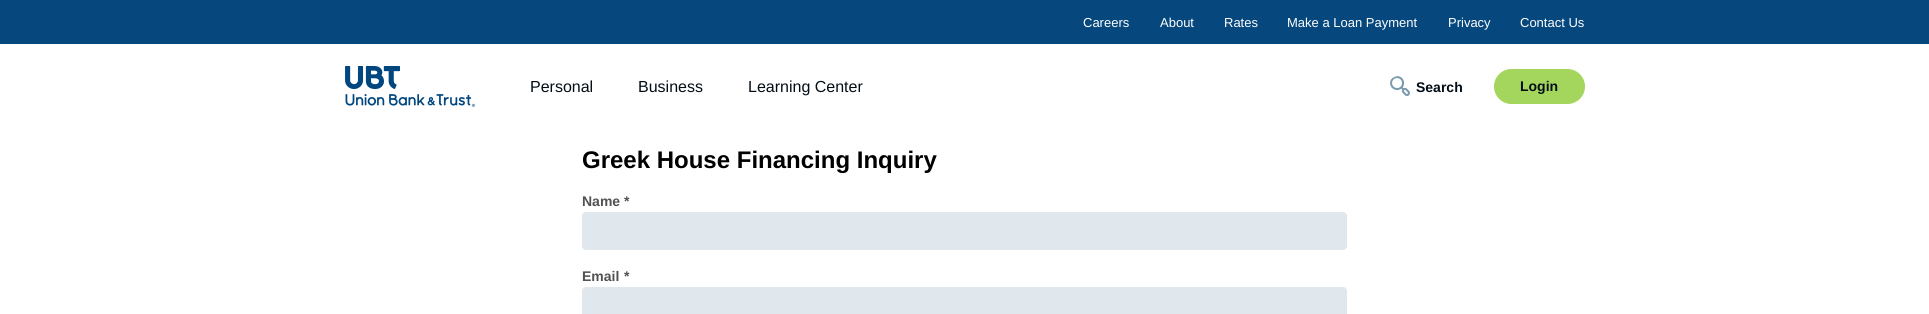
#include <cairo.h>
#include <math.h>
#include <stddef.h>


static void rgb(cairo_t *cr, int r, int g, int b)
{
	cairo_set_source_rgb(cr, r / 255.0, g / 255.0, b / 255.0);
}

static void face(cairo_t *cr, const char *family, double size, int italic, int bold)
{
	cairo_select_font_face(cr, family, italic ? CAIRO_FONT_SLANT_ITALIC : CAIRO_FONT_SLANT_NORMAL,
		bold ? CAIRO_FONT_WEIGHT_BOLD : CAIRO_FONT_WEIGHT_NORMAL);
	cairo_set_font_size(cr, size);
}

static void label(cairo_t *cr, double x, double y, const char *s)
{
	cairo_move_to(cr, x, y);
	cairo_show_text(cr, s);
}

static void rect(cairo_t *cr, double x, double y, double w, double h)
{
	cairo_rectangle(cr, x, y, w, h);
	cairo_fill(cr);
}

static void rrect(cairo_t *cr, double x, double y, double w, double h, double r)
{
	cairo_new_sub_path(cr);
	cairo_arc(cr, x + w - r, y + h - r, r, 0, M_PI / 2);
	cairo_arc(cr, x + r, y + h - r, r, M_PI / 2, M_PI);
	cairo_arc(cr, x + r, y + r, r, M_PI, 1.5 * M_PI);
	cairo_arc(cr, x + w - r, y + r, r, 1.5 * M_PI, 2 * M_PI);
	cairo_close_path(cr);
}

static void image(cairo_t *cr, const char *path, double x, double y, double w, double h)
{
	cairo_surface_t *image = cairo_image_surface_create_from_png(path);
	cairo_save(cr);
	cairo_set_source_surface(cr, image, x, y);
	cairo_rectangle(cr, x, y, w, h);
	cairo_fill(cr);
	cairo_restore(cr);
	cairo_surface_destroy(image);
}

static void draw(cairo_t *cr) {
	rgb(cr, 255, 255, 255);
	cairo_paint(cr);
	rgb(cr, 6, 71, 125);
	rect(cr, 0, 0, 1929, 44);
	face(cr, "Liberation Sans", 13, 0, 0);
	rgb(cr, 255, 255, 255);
	label(cr, 1083, 27, "Careers");
	label(cr, 1160, 27, "About");
	label(cr, 1224, 27, "Rates");
	label(cr, 1287, 27, "Make a Loan Payment");
	label(cr, 1448, 27, "Privacy");
	label(cr, 1520, 27, "Contact Us");
	image(cr, "image0.png", 345, 66, 130, 41);
	face(cr, "Liberation Sans", 16, 0, 0);
	rgb(cr, 2, 13, 22);
	label(cr, 530, 92, "Personal");
	label(cr, 638, 92, "Business");
	label(cr, 748, 92, "Learning Center");
	image(cr, "image1.png", 1390, 76, 20, 20);
	face(cr, "Liberation Sans", 14, 0, 1);
	label(cr, 1416, 92, "Search");
	rgb(cr, 164, 214, 94);
	rrect(cr, 1494.5, 69.5, 90, 34, 17);
	cairo_fill_preserve(cr);
	cairo_set_line_width(cr, 1);
	cairo_stroke(cr);
	rgb(cr, 2, 13, 22);
	label(cr, 1520, 91, "Login");
	face(cr, "Liberation Sans", 24, 0, 1);
	rgb(cr, 0, 0, 0);
	label(cr, 582, 168, "Greek House Financing Inquiry");
	face(cr, "Liberation Sans", 14, 0, 1);
	rgb(cr, 82, 82, 82);
	label(cr, 582, 206, "Name");
	label(cr, 624, 206, "*");
	rgb(cr, 224, 232, 237);
	rrect(cr, 582, 212, 765, 38, 4);
	cairo_fill(cr);
	rgb(cr, 82, 82, 82);
	label(cr, 582, 281, "Email");
	label(cr, 624, 281, "*");
	rgb(cr, 224, 232, 237);
	rrect(cr, 582, 287, 765, 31, 4);
	cairo_fill(cr);
}

int main(void) {
	cairo_surface_t *surface = cairo_image_surface_create(CAIRO_FORMAT_RGB24, 1929, 314);
	cairo_t *cr = cairo_create(surface);
	cairo_font_options_t *options = cairo_font_options_create();
	cairo_font_options_set_hint_metrics(options, CAIRO_HINT_METRICS_OFF);
	cairo_font_options_set_hint_style(options, CAIRO_HINT_STYLE_NONE);
	cairo_set_font_options(cr, options);
	cairo_set_miter_limit(cr, 4);
	draw(cr);
	cairo_surface_write_to_png(surface, "render.png");
	cairo_font_options_destroy(options);
	cairo_destroy(cr);
	cairo_surface_destroy(surface);
	return 0;
}
